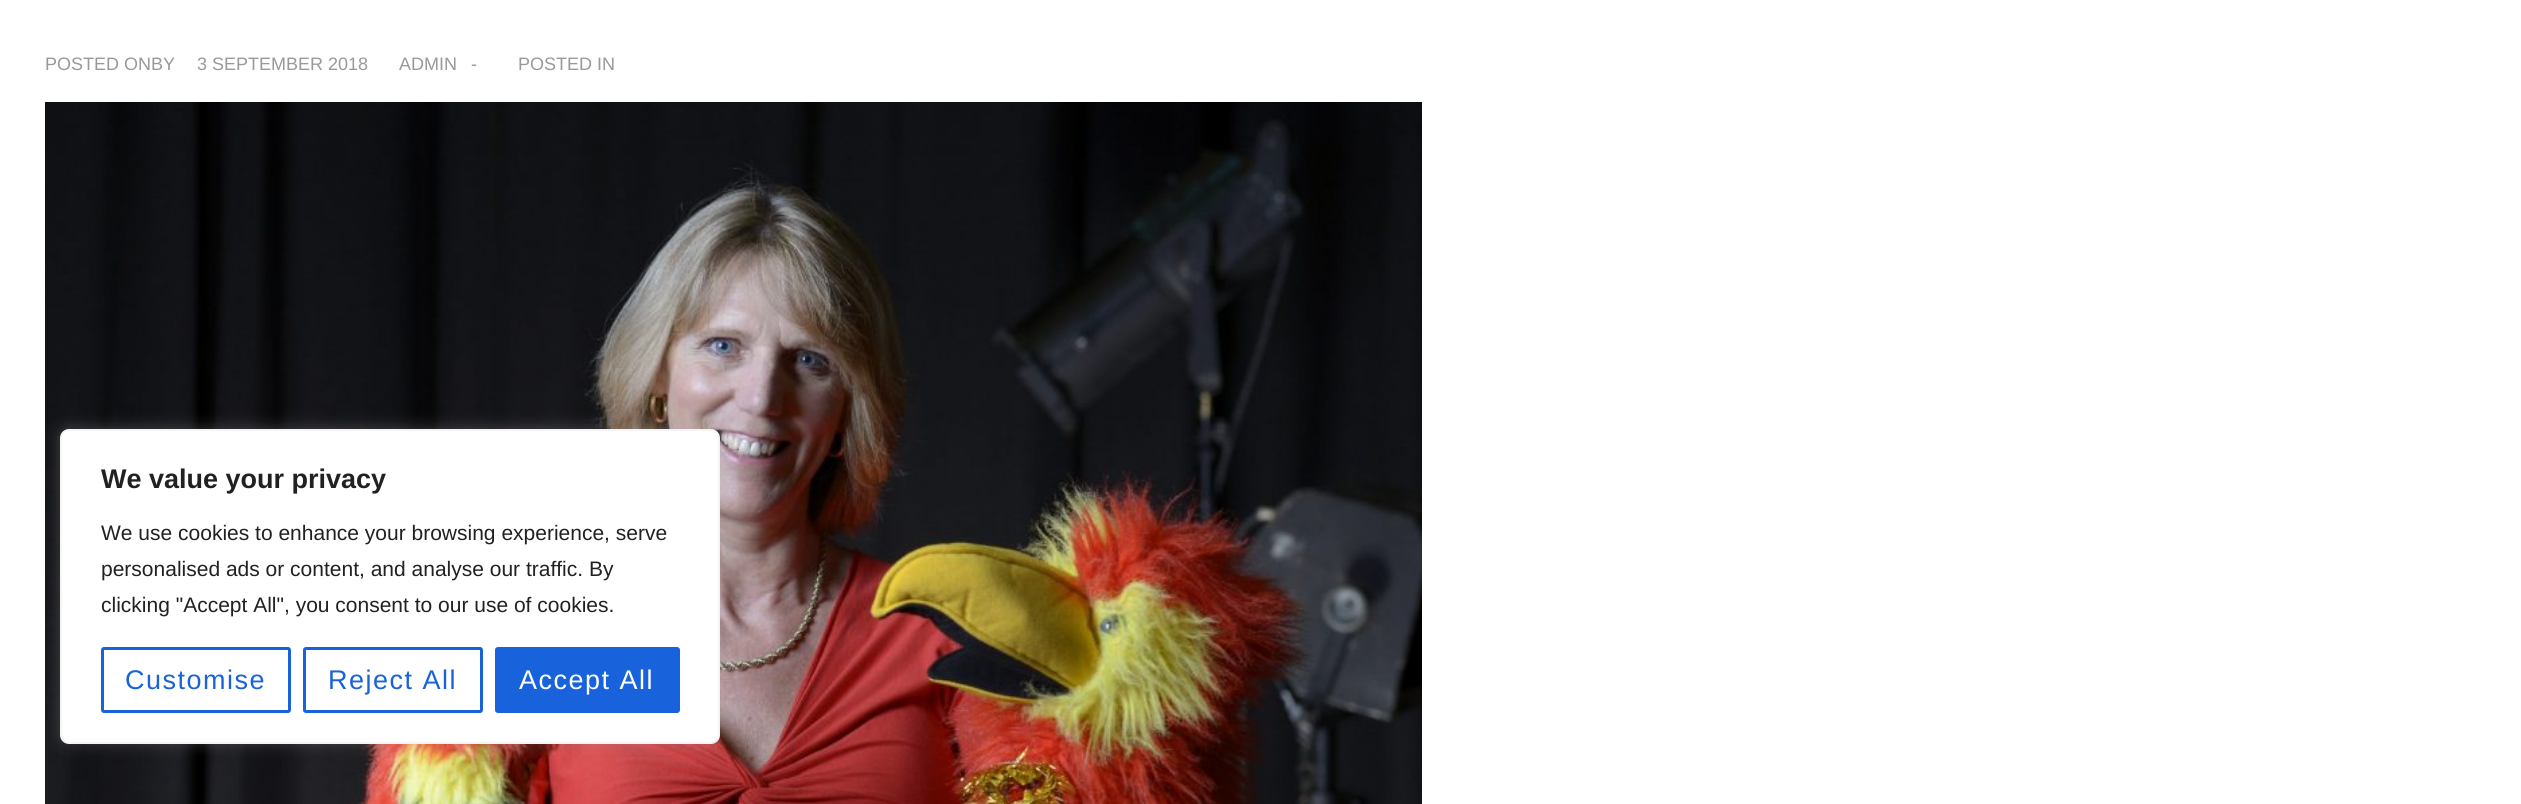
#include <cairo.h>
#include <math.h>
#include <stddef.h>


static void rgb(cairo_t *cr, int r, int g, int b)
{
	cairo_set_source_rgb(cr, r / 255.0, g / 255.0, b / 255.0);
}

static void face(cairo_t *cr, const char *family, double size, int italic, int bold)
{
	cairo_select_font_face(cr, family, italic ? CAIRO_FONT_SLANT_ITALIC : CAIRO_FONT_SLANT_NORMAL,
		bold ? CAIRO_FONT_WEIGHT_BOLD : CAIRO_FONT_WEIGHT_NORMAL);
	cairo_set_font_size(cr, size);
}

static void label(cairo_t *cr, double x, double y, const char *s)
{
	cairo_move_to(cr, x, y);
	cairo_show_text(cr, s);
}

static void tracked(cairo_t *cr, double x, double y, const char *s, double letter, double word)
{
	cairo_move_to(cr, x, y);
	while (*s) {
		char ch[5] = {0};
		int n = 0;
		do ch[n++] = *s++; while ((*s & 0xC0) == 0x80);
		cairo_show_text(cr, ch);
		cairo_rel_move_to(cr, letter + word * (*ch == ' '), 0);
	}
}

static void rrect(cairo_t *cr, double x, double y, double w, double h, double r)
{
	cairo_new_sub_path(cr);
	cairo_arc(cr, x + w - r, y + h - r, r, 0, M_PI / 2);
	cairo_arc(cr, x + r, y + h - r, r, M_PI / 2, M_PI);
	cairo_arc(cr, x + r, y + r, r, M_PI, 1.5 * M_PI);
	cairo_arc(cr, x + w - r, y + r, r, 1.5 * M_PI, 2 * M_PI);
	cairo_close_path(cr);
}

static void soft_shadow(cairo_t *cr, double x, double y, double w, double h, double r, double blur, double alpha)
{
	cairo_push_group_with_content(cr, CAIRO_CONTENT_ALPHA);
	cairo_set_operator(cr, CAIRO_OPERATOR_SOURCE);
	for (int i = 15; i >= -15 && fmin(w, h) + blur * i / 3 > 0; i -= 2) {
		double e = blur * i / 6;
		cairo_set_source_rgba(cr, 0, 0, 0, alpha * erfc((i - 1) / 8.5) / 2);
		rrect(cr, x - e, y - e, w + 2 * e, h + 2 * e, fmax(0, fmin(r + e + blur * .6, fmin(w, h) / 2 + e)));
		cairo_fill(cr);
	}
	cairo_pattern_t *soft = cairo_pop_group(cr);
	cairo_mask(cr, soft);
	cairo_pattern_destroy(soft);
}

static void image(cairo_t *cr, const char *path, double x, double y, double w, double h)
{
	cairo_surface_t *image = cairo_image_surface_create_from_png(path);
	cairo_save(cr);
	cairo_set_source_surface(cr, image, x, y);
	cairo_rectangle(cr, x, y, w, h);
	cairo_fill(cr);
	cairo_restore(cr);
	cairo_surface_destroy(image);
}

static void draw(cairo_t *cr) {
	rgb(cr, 255, 255, 255);
	cairo_paint(cr);
	face(cr, "Liberation Sans", 18, 0, 0);
	rgb(cr, 153, 153, 153);
	label(cr, 45, 70, "POSTED ONBY");
	label(cr, 197, 70, "3 SEPTEMBER 2018");
	label(cr, 399, 70, "ADMIN");
	label(cr, 471, 70, "-");
	label(cr, 518, 70, "POSTED IN");
	image(cr, "image0.png", 45, 102, 1377, 702);
	rgb(cr, 172, 171, 171);
	soft_shadow(cr, 60, 428, 660, 315, 9, 7.5, 0.3);
	rgb(cr, 255, 255, 255);
	rrect(cr, 61, 430, 658, 313, 8);
	cairo_fill_preserve(cr);
	rgb(cr, 244, 244, 244);
	cairo_stroke(cr);
	face(cr, "Liberation Sans", 27, 0, 1);
	rgb(cr, 33, 33, 33);
	label(cr, 101, 488, "We value your privacy");
	face(cr, "Liberation Sans", 21, 0, 0);
	label(cr, 101, 540, "We use cookies to enhance your browsing experience, serve");
	label(cr, 101, 576, "personalised ads or content, and analyse our traffic. By");
	label(cr, 101, 612, "clicking \"Accept All\", you consent to our use of cookies.");
	rrect(cr, 102.5, 648.5, 187, 63, 1.5);
	rgb(cr, 24, 99, 220);
	cairo_set_line_width(cr, 3);
	cairo_stroke(cr);
	face(cr, "Liberation Sans", 27, 0, 0);
	tracked(cr, 125, 689, "Customise", 1.5, 0);
	rrect(cr, 304.5, 648.5, 177, 63, 1.5);
	cairo_stroke(cr);
	tracked(cr, 328, 689, "Reject All", 1.5, 0);
	rrect(cr, 496.5, 648.5, 182, 63, 1.5);
	cairo_fill_preserve(cr);
	cairo_stroke(cr);
	rgb(cr, 255, 255, 255);
	tracked(cr, 519, 689, "Accept All", 1.5, 0);
}

int main(void) {
	cairo_surface_t *surface = cairo_image_surface_create(CAIRO_FORMAT_RGB24, 2521, 804);
	cairo_t *cr = cairo_create(surface);
	cairo_font_options_t *options = cairo_font_options_create();
	cairo_font_options_set_hint_metrics(options, CAIRO_HINT_METRICS_OFF);
	cairo_font_options_set_hint_style(options, CAIRO_HINT_STYLE_NONE);
	cairo_set_font_options(cr, options);
	cairo_set_miter_limit(cr, 4);
	draw(cr);
	cairo_surface_write_to_png(surface, "render.png");
	cairo_font_options_destroy(options);
	cairo_destroy(cr);
	cairo_surface_destroy(surface);
	return 0;
}
